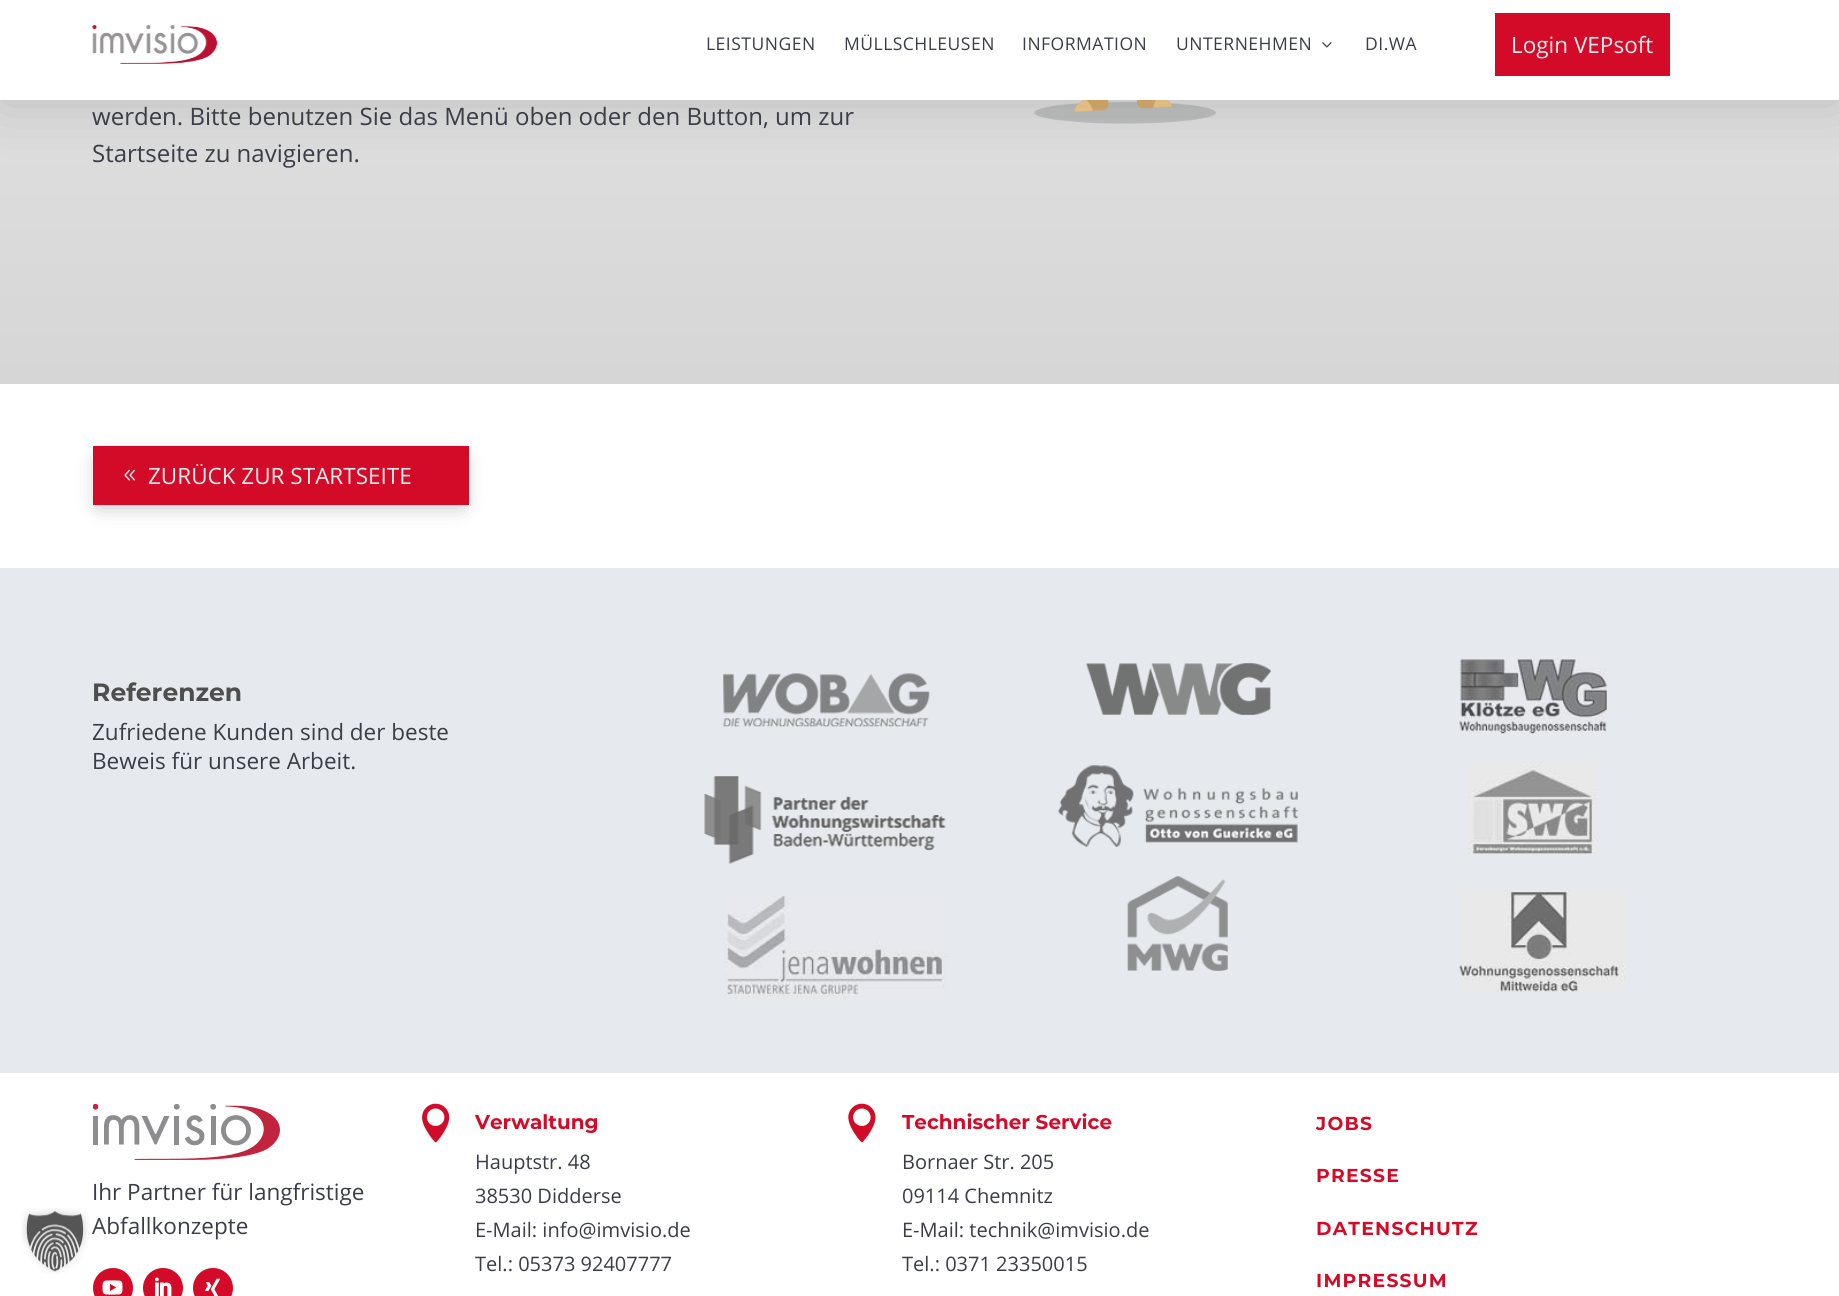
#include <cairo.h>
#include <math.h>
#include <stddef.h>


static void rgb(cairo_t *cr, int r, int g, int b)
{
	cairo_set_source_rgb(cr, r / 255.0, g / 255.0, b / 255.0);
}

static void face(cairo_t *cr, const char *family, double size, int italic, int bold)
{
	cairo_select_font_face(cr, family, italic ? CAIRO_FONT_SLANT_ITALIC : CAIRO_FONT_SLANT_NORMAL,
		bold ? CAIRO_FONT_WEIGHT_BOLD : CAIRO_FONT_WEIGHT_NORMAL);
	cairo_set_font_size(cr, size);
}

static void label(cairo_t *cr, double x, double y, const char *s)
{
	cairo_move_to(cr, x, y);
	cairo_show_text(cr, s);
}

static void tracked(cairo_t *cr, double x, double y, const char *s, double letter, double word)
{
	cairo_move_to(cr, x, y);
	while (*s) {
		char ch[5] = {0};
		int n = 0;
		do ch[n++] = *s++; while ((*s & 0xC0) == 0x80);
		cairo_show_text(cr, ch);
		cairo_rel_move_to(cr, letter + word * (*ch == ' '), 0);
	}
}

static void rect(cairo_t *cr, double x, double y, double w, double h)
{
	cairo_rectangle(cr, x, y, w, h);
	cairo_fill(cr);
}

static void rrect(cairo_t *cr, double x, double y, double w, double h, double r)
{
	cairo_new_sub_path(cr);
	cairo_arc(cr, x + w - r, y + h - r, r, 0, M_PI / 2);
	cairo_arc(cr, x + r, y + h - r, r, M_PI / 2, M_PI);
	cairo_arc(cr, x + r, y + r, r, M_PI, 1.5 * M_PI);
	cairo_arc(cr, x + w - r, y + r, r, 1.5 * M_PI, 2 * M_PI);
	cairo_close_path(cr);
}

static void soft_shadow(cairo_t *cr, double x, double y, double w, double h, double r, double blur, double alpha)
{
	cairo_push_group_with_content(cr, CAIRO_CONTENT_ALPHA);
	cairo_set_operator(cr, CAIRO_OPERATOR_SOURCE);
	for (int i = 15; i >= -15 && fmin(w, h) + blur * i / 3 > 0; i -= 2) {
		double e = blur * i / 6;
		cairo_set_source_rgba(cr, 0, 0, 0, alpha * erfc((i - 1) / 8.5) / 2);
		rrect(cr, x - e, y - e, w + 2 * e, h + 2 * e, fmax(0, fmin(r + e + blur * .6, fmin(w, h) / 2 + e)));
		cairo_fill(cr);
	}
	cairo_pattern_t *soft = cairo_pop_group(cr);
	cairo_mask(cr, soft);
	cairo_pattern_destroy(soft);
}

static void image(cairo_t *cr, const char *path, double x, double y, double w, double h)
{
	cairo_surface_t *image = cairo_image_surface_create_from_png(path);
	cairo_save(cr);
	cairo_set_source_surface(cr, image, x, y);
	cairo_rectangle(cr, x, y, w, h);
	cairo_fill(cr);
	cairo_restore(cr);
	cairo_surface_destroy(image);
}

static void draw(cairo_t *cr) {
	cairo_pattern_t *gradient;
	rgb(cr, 255, 255, 255);
	cairo_paint(cr);
	image(cr, "image0.png", 21, 1208, 68, 66);
	gradient = cairo_pattern_create_linear(920, -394, 920, 384);
	cairo_pattern_add_color_stop_rgba(gradient, 0, 0.929, 0.929, 0.929, 1);
	cairo_pattern_add_color_stop_rgba(gradient, 1, 0.839, 0.839, 0.839, 1);
	cairo_set_source(cr, gradient);
	cairo_pattern_destroy(gradient);
	rect(cr, 0, 100, 1839, 284);
	image(cr, "image3.png", 1034, 100, 182, 24);
	rgb(cr, 0, 0, 0);
	soft_shadow(cr, 0, 3, 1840, 100, 0, 31, 0.15);
	rgb(cr, 255, 255, 255);
	rect(cr, 0, 0, 1839, 100);
	image(cr, "image1.png", 92, 25, 126, 39);
	face(cr, "Open Sans", 17.5, 0, 0);
	rgb(cr, 59, 61, 71);
	tracked(cr, 706, 50, "LEISTUNGEN", 0.5, 0);
	tracked(cr, 844, 50, "MÜLLSCHLEUSEN", 0.5, 0);
	tracked(cr, 1022, 50, "INFORMATION", 0.5, 0);
	tracked(cr, 1176, 50, "UNTERNEHMEN", 0.5, 0);
	image(cr, "image2.png", 1322, 42, 10, 6);
	tracked(cr, 1365, 50, "DI.WA", 0.5, 0);
	rgb(cr, 211, 11, 40);
	rect(cr, 1495, 13, 175, 63);
	face(cr, "Open Sans", 22.5, 0, 0);
	rgb(cr, 237, 237, 237);
	label(cr, 1511, 53, "Login VEPsoft");
	face(cr, "Open Sans", 24, 0, 0);
	rgb(cr, 59, 61, 71);
	label(cr, 92, 125, "werden. Bitte benutzen Sie das Menü oben oder den Button, um zur");
	label(cr, 92, 162, "Startseite zu navigieren.");
	rgb(cr, 0, 0, 0);
	soft_shadow(cr, 100, 460, 361, 44, 0, 11, 0.3);
	rgb(cr, 211, 11, 40);
	rect(cr, 93, 446, 376, 59);
	image(cr, "image4.png", 124, 469, 11, 12);
	face(cr, "Open Sans", 22.5, 0, 0);
	rgb(cr, 237, 237, 237);
	label(cr, 148, 484, "ZURÜCK ZUR STARTSEITE");
	rgb(cr, 230, 233, 237);
	rect(cr, 0, 568, 1839, 505);
	face(cr, "Montserrat", 25, 0, 1);
	rgb(cr, 78, 78, 78);
	label(cr, 92, 701, "Referenzen");
	face(cr, "Open Sans", 22.5, 0, 0);
	rgb(cr, 59, 61, 71);
	label(cr, 92, 740, "Zufriedene Kunden sind der beste");
	label(cr, 92, 769, "Beweis für unsere Arbeit.");
	image(cr, "image5.png", 723, 673, 207, 54);
	image(cr, "image6.png", 704, 776, 242, 88);
	image(cr, "image7.png", 725, 896, 222, 102);
	image(cr, "image8.png", 1086, 663, 185, 52);
	image(cr, "image9.png", 1058, 765, 240, 82);
	image(cr, "image10.png", 1127, 876, 101, 95);
	image(cr, "image11.png", 1459, 659, 148, 75);
	image(cr, "image12.png", 1468, 762, 130, 93);
	image(cr, "image13.png", 1459, 890, 167, 102);
	image(cr, "image14.png", 93, 1104, 187, 56);
	label(cr, 92, 1200, "Ihr Partner für langfristige");
	label(cr, 92, 1234, "Abfallkonzepte");
	rgb(cr, 211, 11, 40);
	cairo_new_path(cr);
	cairo_arc(cr, 113, 1288, 20, 0, 2 * M_PI);
	cairo_fill(cr);
	image(cr, "image15.png", 102, 1280, 21, 15);
	cairo_arc(cr, 163, 1288, 20, 0, 2 * M_PI);
	cairo_fill(cr);
	image(cr, "image16.png", 155, 1277, 17, 19);
	cairo_arc(cr, 213, 1288, 20, 0, 2 * M_PI);
	cairo_fill(cr);
	image(cr, "image17.png", 205, 1278, 15, 18);
	image(cr, "image18.png", 422, 1103, 28, 40);
	face(cr, "Montserrat", 20, 0, 1);
	label(cr, 475, 1129, "Verwaltung");
	face(cr, "Open Sans", 20, 0, 0);
	rgb(cr, 59, 61, 71);
	label(cr, 475, 1169, "Hauptstr. 48");
	label(cr, 475, 1203, "38530 Didderse");
	label(cr, 475, 1237, "E-Mail: info@imvisio.de");
	label(cr, 475, 1271, "Tel.: 05373 92407777");
	image(cr, "image19.png", 848, 1103, 28, 40);
	face(cr, "Montserrat", 20, 0, 1);
	rgb(cr, 211, 11, 40);
	label(cr, 902, 1129, "Technischer Service");
	face(cr, "Open Sans", 20, 0, 0);
	rgb(cr, 59, 61, 71);
	label(cr, 902, 1169, "Bornaer Str. 205");
	label(cr, 902, 1203, "09114 Chemnitz");
	label(cr, 902, 1237, "E-Mail: technik@imvisio.de");
	label(cr, 902, 1271, "Tel.: 0371 23350015");
	face(cr, "Montserrat", 18.75, 0, 1);
	rgb(cr, 211, 11, 40);
	tracked(cr, 1316, 1130, "JOBS", 1.25, 0);
	tracked(cr, 1316, 1182, "PRESSE", 1.25, 0);
	tracked(cr, 1316, 1235, "DATENSCHUTZ", 1.25, 0);
	tracked(cr, 1316, 1287, "IMPRESSUM", 1.25, 0);
}

int main(void) {
	cairo_surface_t *surface = cairo_image_surface_create(CAIRO_FORMAT_RGB24, 1839, 1296);
	cairo_t *cr = cairo_create(surface);
	cairo_font_options_t *options = cairo_font_options_create();
	cairo_font_options_set_hint_metrics(options, CAIRO_HINT_METRICS_OFF);
	cairo_font_options_set_hint_style(options, CAIRO_HINT_STYLE_NONE);
	cairo_set_font_options(cr, options);
	cairo_set_miter_limit(cr, 4);
	draw(cr);
	cairo_surface_write_to_png(surface, "render.png");
	cairo_font_options_destroy(options);
	cairo_destroy(cr);
	cairo_surface_destroy(surface);
	return 0;
}
